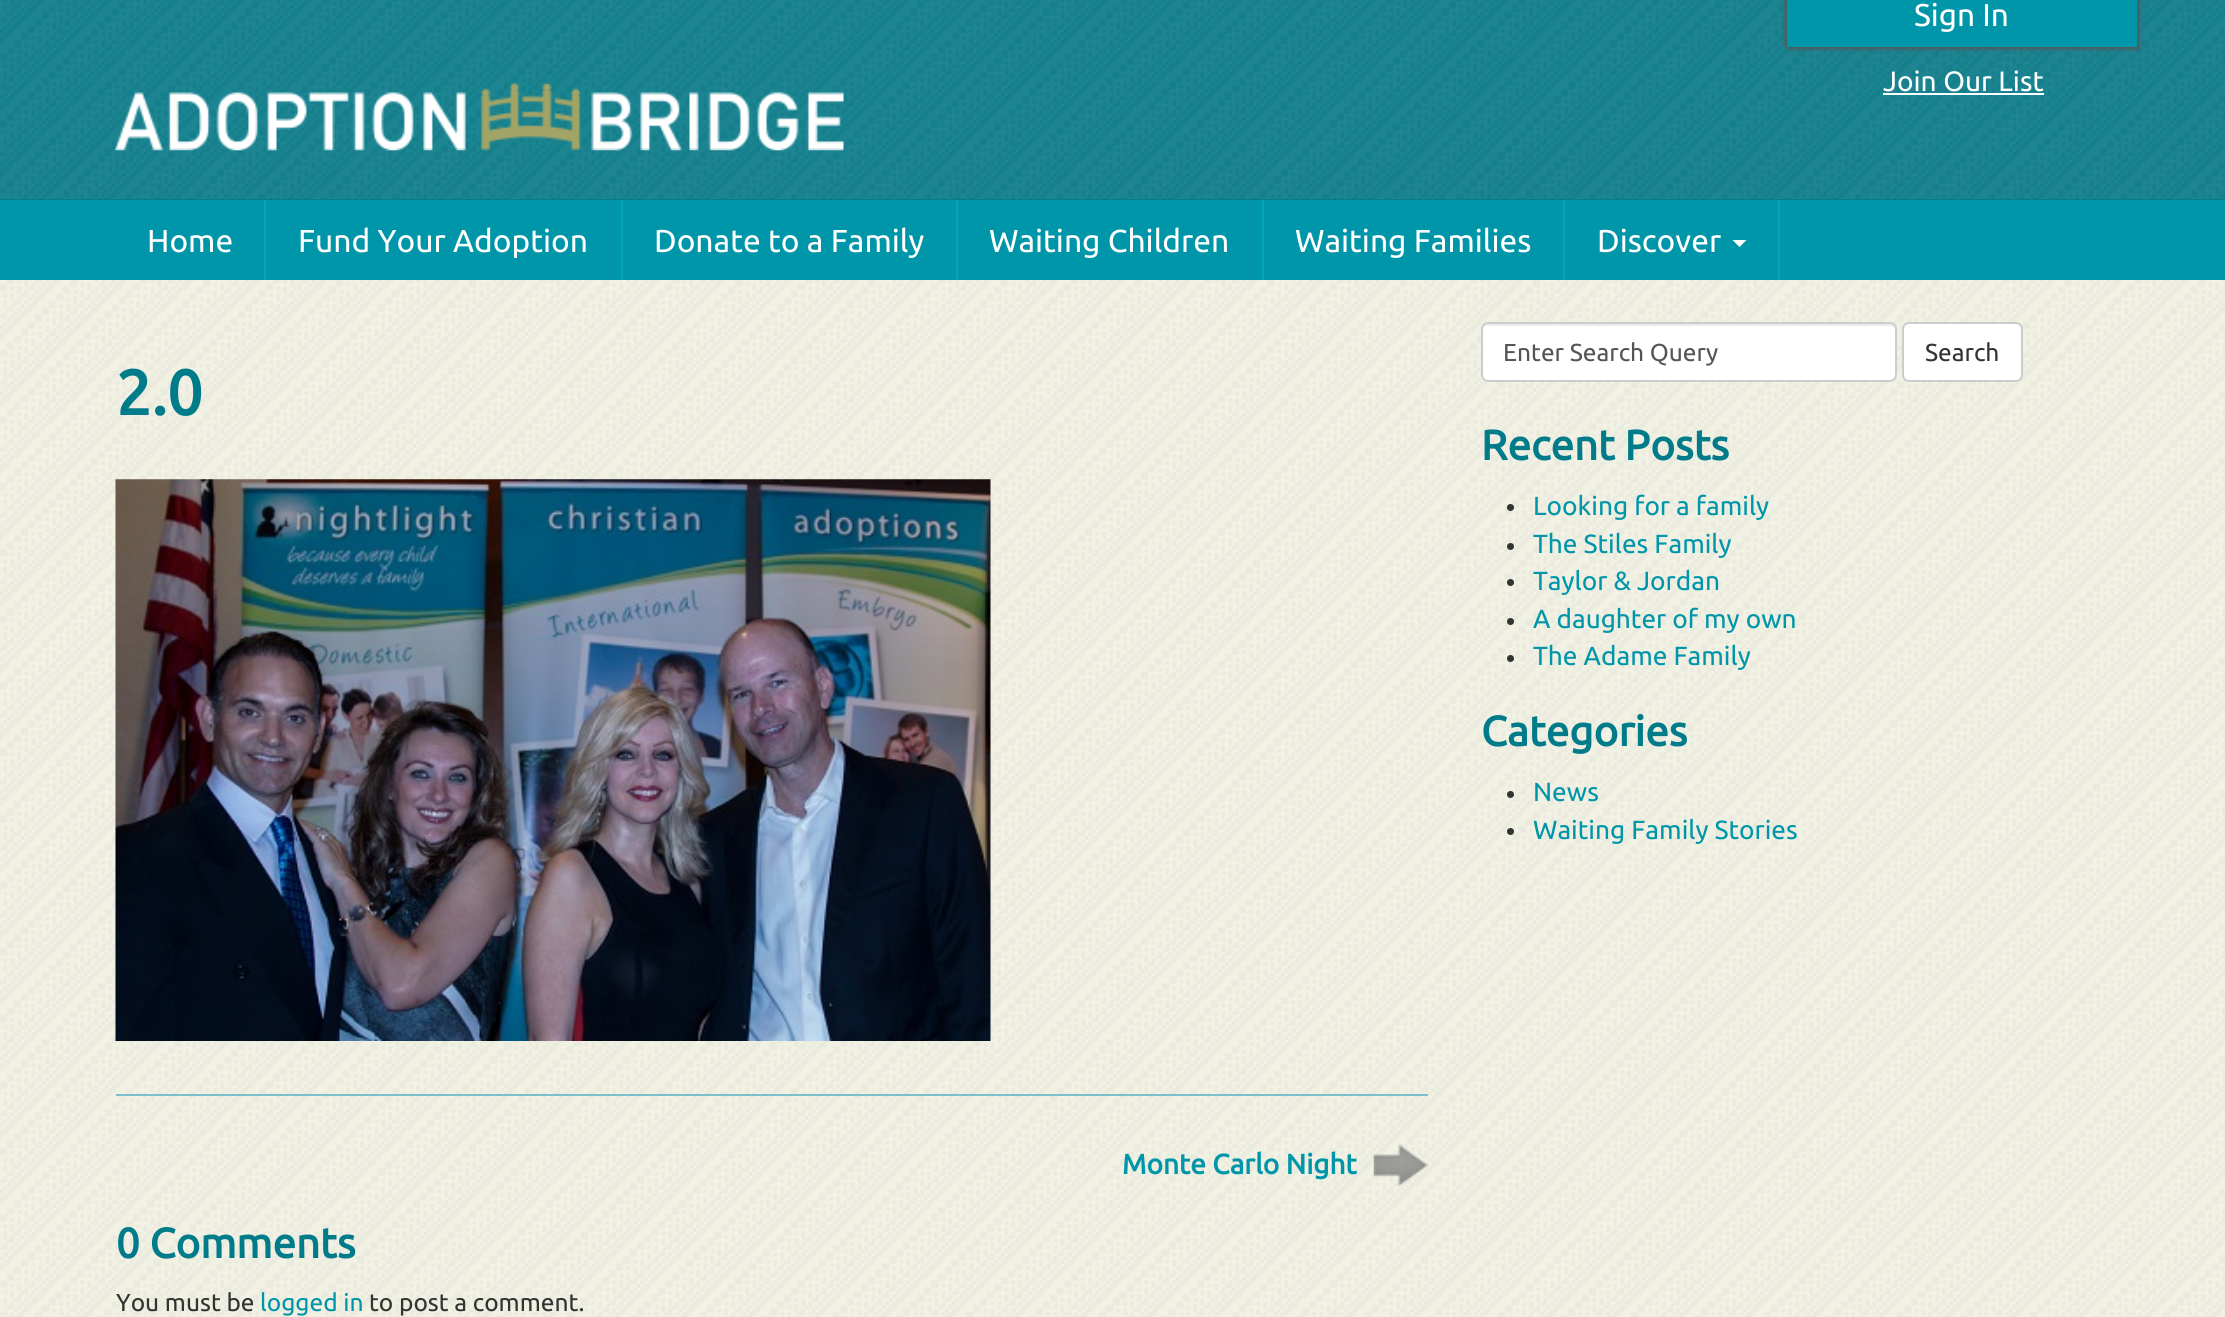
#include <cairo.h>
#include <math.h>
#include <stddef.h>


static void rgb(cairo_t *cr, int r, int g, int b)
{
	cairo_set_source_rgb(cr, r / 255.0, g / 255.0, b / 255.0);
}

static void face(cairo_t *cr, const char *family, double size, int italic, int bold)
{
	cairo_select_font_face(cr, family, italic ? CAIRO_FONT_SLANT_ITALIC : CAIRO_FONT_SLANT_NORMAL,
		bold ? CAIRO_FONT_WEIGHT_BOLD : CAIRO_FONT_WEIGHT_NORMAL);
	cairo_set_font_size(cr, size);
}

static void label(cairo_t *cr, double x, double y, const char *s)
{
	cairo_move_to(cr, x, y);
	cairo_show_text(cr, s);
}

static void rect(cairo_t *cr, double x, double y, double w, double h)
{
	cairo_rectangle(cr, x, y, w, h);
	cairo_fill(cr);
}

static void rrect(cairo_t *cr, double x, double y, double w, double h, double r)
{
	cairo_new_sub_path(cr);
	cairo_arc(cr, x + w - r, y + h - r, r, 0, M_PI / 2);
	cairo_arc(cr, x + r, y + h - r, r, M_PI / 2, M_PI);
	cairo_arc(cr, x + r, y + r, r, M_PI, 1.5 * M_PI);
	cairo_arc(cr, x + w - r, y + r, r, 1.5 * M_PI, 2 * M_PI);
	cairo_close_path(cr);
}

static void soft_shadow(cairo_t *cr, double x, double y, double w, double h, double r, double blur, double alpha)
{
	cairo_push_group_with_content(cr, CAIRO_CONTENT_ALPHA);
	cairo_set_operator(cr, CAIRO_OPERATOR_SOURCE);
	for (int i = 15; i >= -15 && fmin(w, h) + blur * i / 3 > 0; i -= 2) {
		double e = blur * i / 6;
		cairo_set_source_rgba(cr, 0, 0, 0, alpha * erfc((i - 1) / 8.5) / 2);
		rrect(cr, x - e, y - e, w + 2 * e, h + 2 * e, fmax(0, fmin(r + e + blur * .6, fmin(w, h) / 2 + e)));
		cairo_fill(cr);
	}
	cairo_pattern_t *soft = cairo_pop_group(cr);
	cairo_mask(cr, soft);
	cairo_pattern_destroy(soft);
}

static void image(cairo_t *cr, const char *path, double x, double y, double w, double h)
{
	cairo_surface_t *image = cairo_image_surface_create_from_png(path);
	cairo_save(cr);
	cairo_set_source_surface(cr, image, x, y);
	cairo_rectangle(cr, x, y, w, h);
	cairo_fill(cr);
	cairo_restore(cr);
	cairo_surface_destroy(image);
}

static void draw(cairo_t *cr) {
	rgb(cr, 255, 255, 255);
	cairo_paint(cr);
	rgb(cr, 0, 123, 138);
	rect(cr, 0, 199, 2225, 1);
	image(cr, "image0.png", 0, 0, 2225, 200);
	rgb(cr, 85, 85, 85);
	soft_shadow(cr, 1785, -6, 350, 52, 0, 2, 1);
	soft_shadow(cr, 1789, -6, 350, 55, 0, 2, 1);
	rgb(cr, 0, 150, 169);
	rect(cr, 1787, 0, 350, 47);
	face(cr, "Ubuntu", 31.5, 0, 0);
	rgb(cr, 255, 255, 255);
	label(cr, 1914, 26, "Sign In");
	image(cr, "image1.png", 115, 83, 729, 68);
	face(cr, "Ubuntu", 28, 0, 0);
	label(cr, 1883, 91, "Join Our List");
	rect(cr, 1883, 93, 161, 2);
	rgb(cr, 0, 150, 169);
	rect(cr, 0, 200, 2225, 80);
	rgb(cr, 1, 164, 186);
	rect(cr, 264, 200, 2, 80);
	face(cr, "Ubuntu", 31.75, 0, 0);
	rgb(cr, 255, 255, 255);
	label(cr, 147, 252, "Home");
	rgb(cr, 1, 164, 186);
	rect(cr, 621, 200, 2, 80);
	rgb(cr, 255, 255, 255);
	label(cr, 298, 252, "Fund Your Adoption");
	rgb(cr, 1, 164, 186);
	rect(cr, 956, 200, 2, 80);
	rgb(cr, 255, 255, 255);
	label(cr, 654, 252, "Donate to a Family");
	rgb(cr, 1, 164, 186);
	rect(cr, 1262, 200, 2, 80);
	rgb(cr, 255, 255, 255);
	label(cr, 989, 252, "Waiting Children");
	rgb(cr, 1, 164, 186);
	rect(cr, 1563, 200, 2, 80);
	rgb(cr, 255, 255, 255);
	label(cr, 1295, 252, "Waiting Families");
	rgb(cr, 1, 164, 186);
	rect(cr, 1778, 200, 2, 80);
	rgb(cr, 255, 255, 255);
	label(cr, 1597, 252, "Discover");
	cairo_new_path(cr);
	cairo_move_to(cr, 1732.5, 240);
	cairo_line_to(cr, 1746.5, 240);
	cairo_line_to(cr, 1739.5, 247);
	cairo_close_path(cr);
	cairo_fill(cr);
	image(cr, "image2.png", 0, 280, 2225, 1037);
	face(cr, "Ubuntu", 63, 0, 1);
	rgb(cr, 0, 123, 138);
	label(cr, 116, 415, "2.0");
	image(cr, "image3.png", 115, 479, 876, 562);
	rgb(cr, 125, 192, 201);
	rect(cr, 116, 1094, 1312, 2);
	face(cr, "Ubuntu", 28, 0, 1);
	rgb(cr, 0, 150, 169);
	label(cr, 1122, 1174, "Monte Carlo Night");
	image(cr, "image4.png", 1373, 1144, 55, 42);
	face(cr, "Ubuntu", 42, 0, 1);
	rgb(cr, 0, 123, 138);
	label(cr, 116, 1258, "0 Comments");
	face(cr, "Ubuntu", 24.5, 0, 0);
	rgb(cr, 51, 51, 51);
	label(cr, 116, 1311, "You must be");
	rgb(cr, 0, 150, 169);
	label(cr, 260, 1311, "logged in");
	rgb(cr, 51, 51, 51);
	label(cr, 369, 1311, "to post a comment.");
	rgb(cr, 255, 255, 255);
	rrect(cr, 1481, 322, 416, 60, 7);
	cairo_fill(cr);
	rgb(cr, 236, 236, 236);
	cairo_new_path(cr);
	cairo_move_to(cr, 1488, 326);
	cairo_line_to(cr, 1890, 326);
	cairo_curve_to(cr, 1893, 326, 1895, 328, 1895, 331);
	cairo_line_to(cr, 1895, 329);
	cairo_curve_to(cr, 1895, 326, 1893, 324, 1890, 324);
	cairo_line_to(cr, 1487, 324);
	cairo_curve_to(cr, 1484, 324, 1482, 326, 1482, 329);
	cairo_line_to(cr, 1482, 331);
	cairo_curve_to(cr, 1482, 328, 1485, 326, 1488, 326);
	cairo_close_path(cr);
	cairo_fill(cr);
	rrect(cr, 1482, 323, 414, 58, 6);
	rgb(cr, 204, 204, 204);
	cairo_stroke(cr);
	rgb(cr, 85, 85, 85);
	label(cr, 1503, 361, "Enter Search Query");
	rgb(cr, 255, 255, 255);
	rrect(cr, 1903, 323, 119, 58, 6);
	cairo_fill_preserve(cr);
	rgb(cr, 204, 204, 204);
	cairo_stroke(cr);
	rgb(cr, 51, 51, 51);
	label(cr, 1925, 361, "Search");
	face(cr, "Ubuntu", 42, 0, 1);
	rgb(cr, 0, 123, 138);
	label(cr, 1481, 460, "Recent Posts");
	rgb(cr, 51, 51, 51);
	cairo_new_path(cr);
	cairo_arc(cr, 1510.5, 507.5, 3.5, 0, 2 * M_PI);
	cairo_fill(cr);
	face(cr, "Ubuntu", 26.25, 0, 0);
	rgb(cr, 0, 150, 169);
	label(cr, 1533, 515, "Looking for a family");
	rgb(cr, 51, 51, 51);
	cairo_new_path(cr);
	cairo_arc(cr, 1510.5, 546.5, 3.5, 0, 2 * M_PI);
	cairo_fill(cr);
	rgb(cr, 0, 150, 169);
	label(cr, 1533, 553, "The Stiles Family");
	rgb(cr, 51, 51, 51);
	cairo_new_path(cr);
	cairo_arc(cr, 1510.5, 582.5, 3.5, 0, 2 * M_PI);
	cairo_fill(cr);
	rgb(cr, 0, 150, 169);
	label(cr, 1533, 590, "Taylor & Jordan");
	rgb(cr, 51, 51, 51);
	cairo_new_path(cr);
	cairo_arc(cr, 1510.5, 621.5, 3.5, 0, 2 * M_PI);
	cairo_fill(cr);
	rgb(cr, 0, 150, 169);
	label(cr, 1533, 628, "A daughter of my own");
	rgb(cr, 51, 51, 51);
	cairo_new_path(cr);
	cairo_arc(cr, 1510.5, 658.5, 3.5, 0, 2 * M_PI);
	cairo_fill(cr);
	rgb(cr, 0, 150, 169);
	label(cr, 1533, 665, "The Adame Family");
	face(cr, "Ubuntu", 42, 0, 1);
	rgb(cr, 0, 123, 138);
	label(cr, 1481, 746, "Categories");
	rgb(cr, 51, 51, 51);
	cairo_new_path(cr);
	cairo_arc(cr, 1510.5, 794.5, 3.5, 0, 2 * M_PI);
	cairo_fill(cr);
	face(cr, "Ubuntu", 26.25, 0, 0);
	rgb(cr, 0, 150, 169);
	label(cr, 1533, 801, "News");
	rgb(cr, 51, 51, 51);
	cairo_new_path(cr);
	cairo_arc(cr, 1510.5, 831.5, 3.5, 0, 2 * M_PI);
	cairo_fill(cr);
	rgb(cr, 0, 150, 169);
	label(cr, 1533, 839, "Waiting Family Stories");
}

int main(void) {
	cairo_surface_t *surface = cairo_image_surface_create(CAIRO_FORMAT_RGB24, 2225, 1317);
	cairo_t *cr = cairo_create(surface);
	cairo_font_options_t *options = cairo_font_options_create();
	cairo_font_options_set_hint_metrics(options, CAIRO_HINT_METRICS_OFF);
	cairo_font_options_set_hint_style(options, CAIRO_HINT_STYLE_NONE);
	cairo_set_font_options(cr, options);
	cairo_set_miter_limit(cr, 4);
	draw(cr);
	cairo_surface_write_to_png(surface, "render.png");
	cairo_font_options_destroy(options);
	cairo_destroy(cr);
	cairo_surface_destroy(surface);
	return 0;
}
